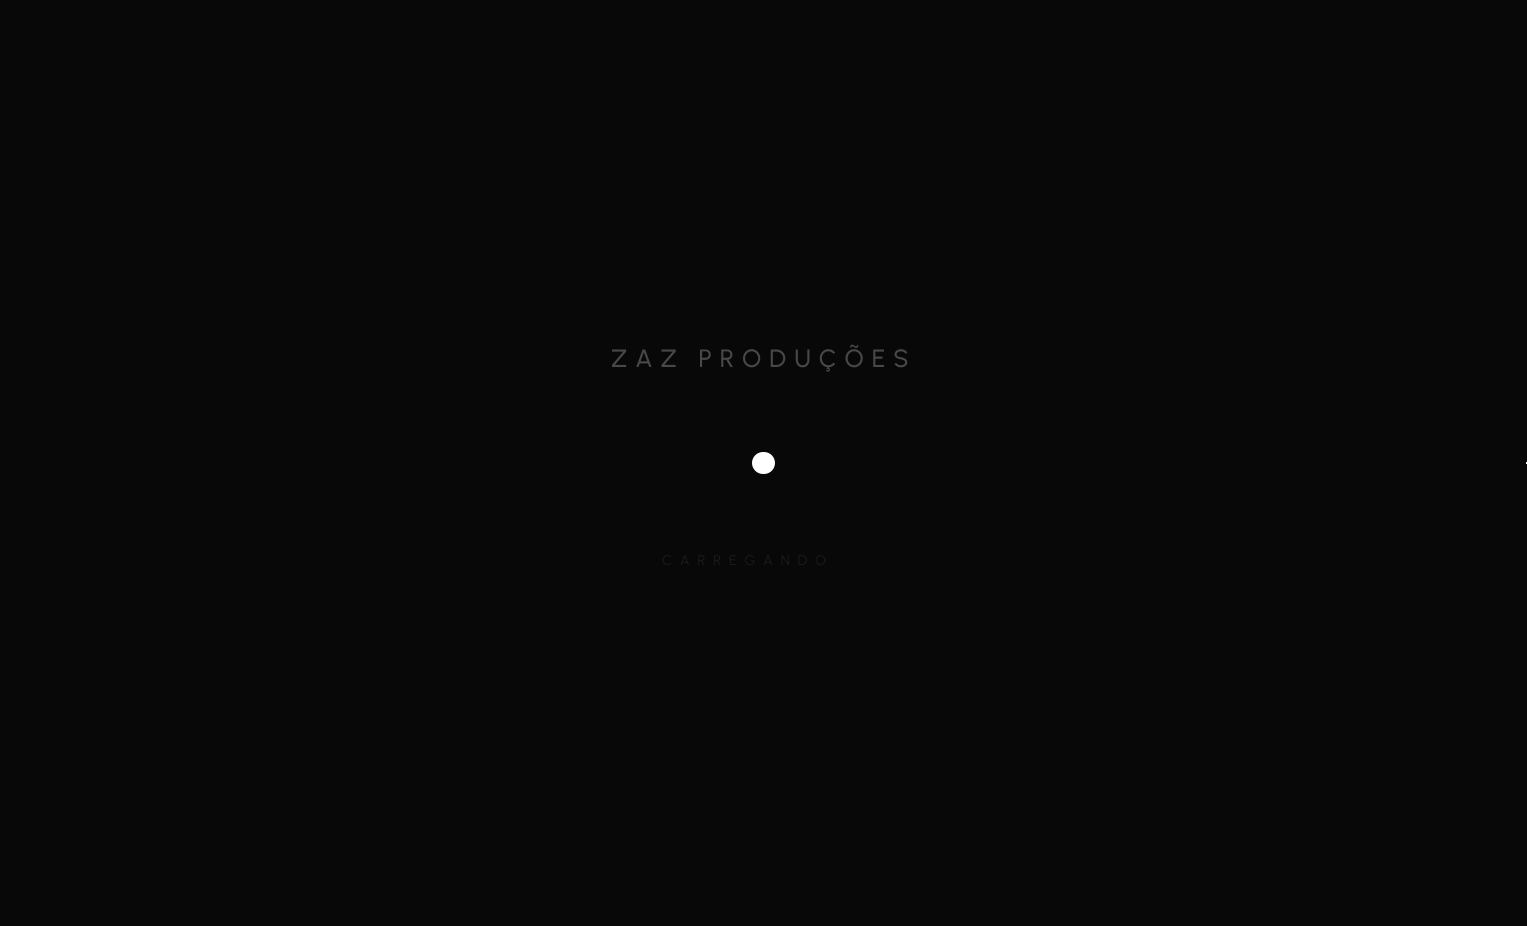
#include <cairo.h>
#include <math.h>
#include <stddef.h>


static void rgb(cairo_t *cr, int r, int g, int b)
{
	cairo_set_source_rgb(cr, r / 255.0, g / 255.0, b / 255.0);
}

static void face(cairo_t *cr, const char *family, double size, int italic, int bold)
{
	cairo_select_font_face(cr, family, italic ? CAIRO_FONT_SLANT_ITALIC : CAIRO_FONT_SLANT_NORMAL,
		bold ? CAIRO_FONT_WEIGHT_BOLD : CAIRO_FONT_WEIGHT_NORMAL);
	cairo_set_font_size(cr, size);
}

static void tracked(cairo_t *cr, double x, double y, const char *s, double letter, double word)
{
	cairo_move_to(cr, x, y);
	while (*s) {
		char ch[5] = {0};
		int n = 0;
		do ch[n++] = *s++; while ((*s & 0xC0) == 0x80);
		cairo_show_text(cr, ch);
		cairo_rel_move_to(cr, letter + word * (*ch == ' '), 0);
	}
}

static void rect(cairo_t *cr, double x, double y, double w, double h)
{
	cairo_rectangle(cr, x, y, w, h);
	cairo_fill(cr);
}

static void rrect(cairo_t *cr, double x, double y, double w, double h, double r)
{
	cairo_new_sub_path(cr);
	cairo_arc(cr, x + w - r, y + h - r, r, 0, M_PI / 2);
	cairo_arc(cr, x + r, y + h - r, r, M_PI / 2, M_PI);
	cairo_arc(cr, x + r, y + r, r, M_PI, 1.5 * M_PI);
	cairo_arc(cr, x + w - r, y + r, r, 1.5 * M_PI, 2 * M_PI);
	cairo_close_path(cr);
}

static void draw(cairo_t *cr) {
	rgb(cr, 9, 8, 8);
	cairo_paint(cr);
	face(cr, "Urbanist Medium", 25, 0, 0);
	rgb(cr, 73, 72, 72);
	tracked(cr, 611, 367, "ZAZ PRODUÇÕES", 8, 0);
	face(cr, "Urbanist", 14, 0, 0);
	rgb(cr, 27, 26, 26);
	tracked(cr, 662, 565, "CARREGANDO...", 8, 0);
	rgb(cr, 255, 255, 255);
	rect(cr, 1526, 462, 1, 2);
	rrect(cr, 752, 452, 23, 22, 11);
	cairo_fill(cr);
}

int main(void) {
	cairo_surface_t *surface = cairo_image_surface_create(CAIRO_FORMAT_RGB24, 1527, 926);
	cairo_t *cr = cairo_create(surface);
	cairo_font_options_t *options = cairo_font_options_create();
	cairo_font_options_set_hint_metrics(options, CAIRO_HINT_METRICS_OFF);
	cairo_font_options_set_hint_style(options, CAIRO_HINT_STYLE_NONE);
	cairo_set_font_options(cr, options);
	cairo_set_miter_limit(cr, 4);
	draw(cr);
	cairo_surface_write_to_png(surface, "render.png");
	cairo_font_options_destroy(options);
	cairo_destroy(cr);
	cairo_surface_destroy(surface);
	return 0;
}
